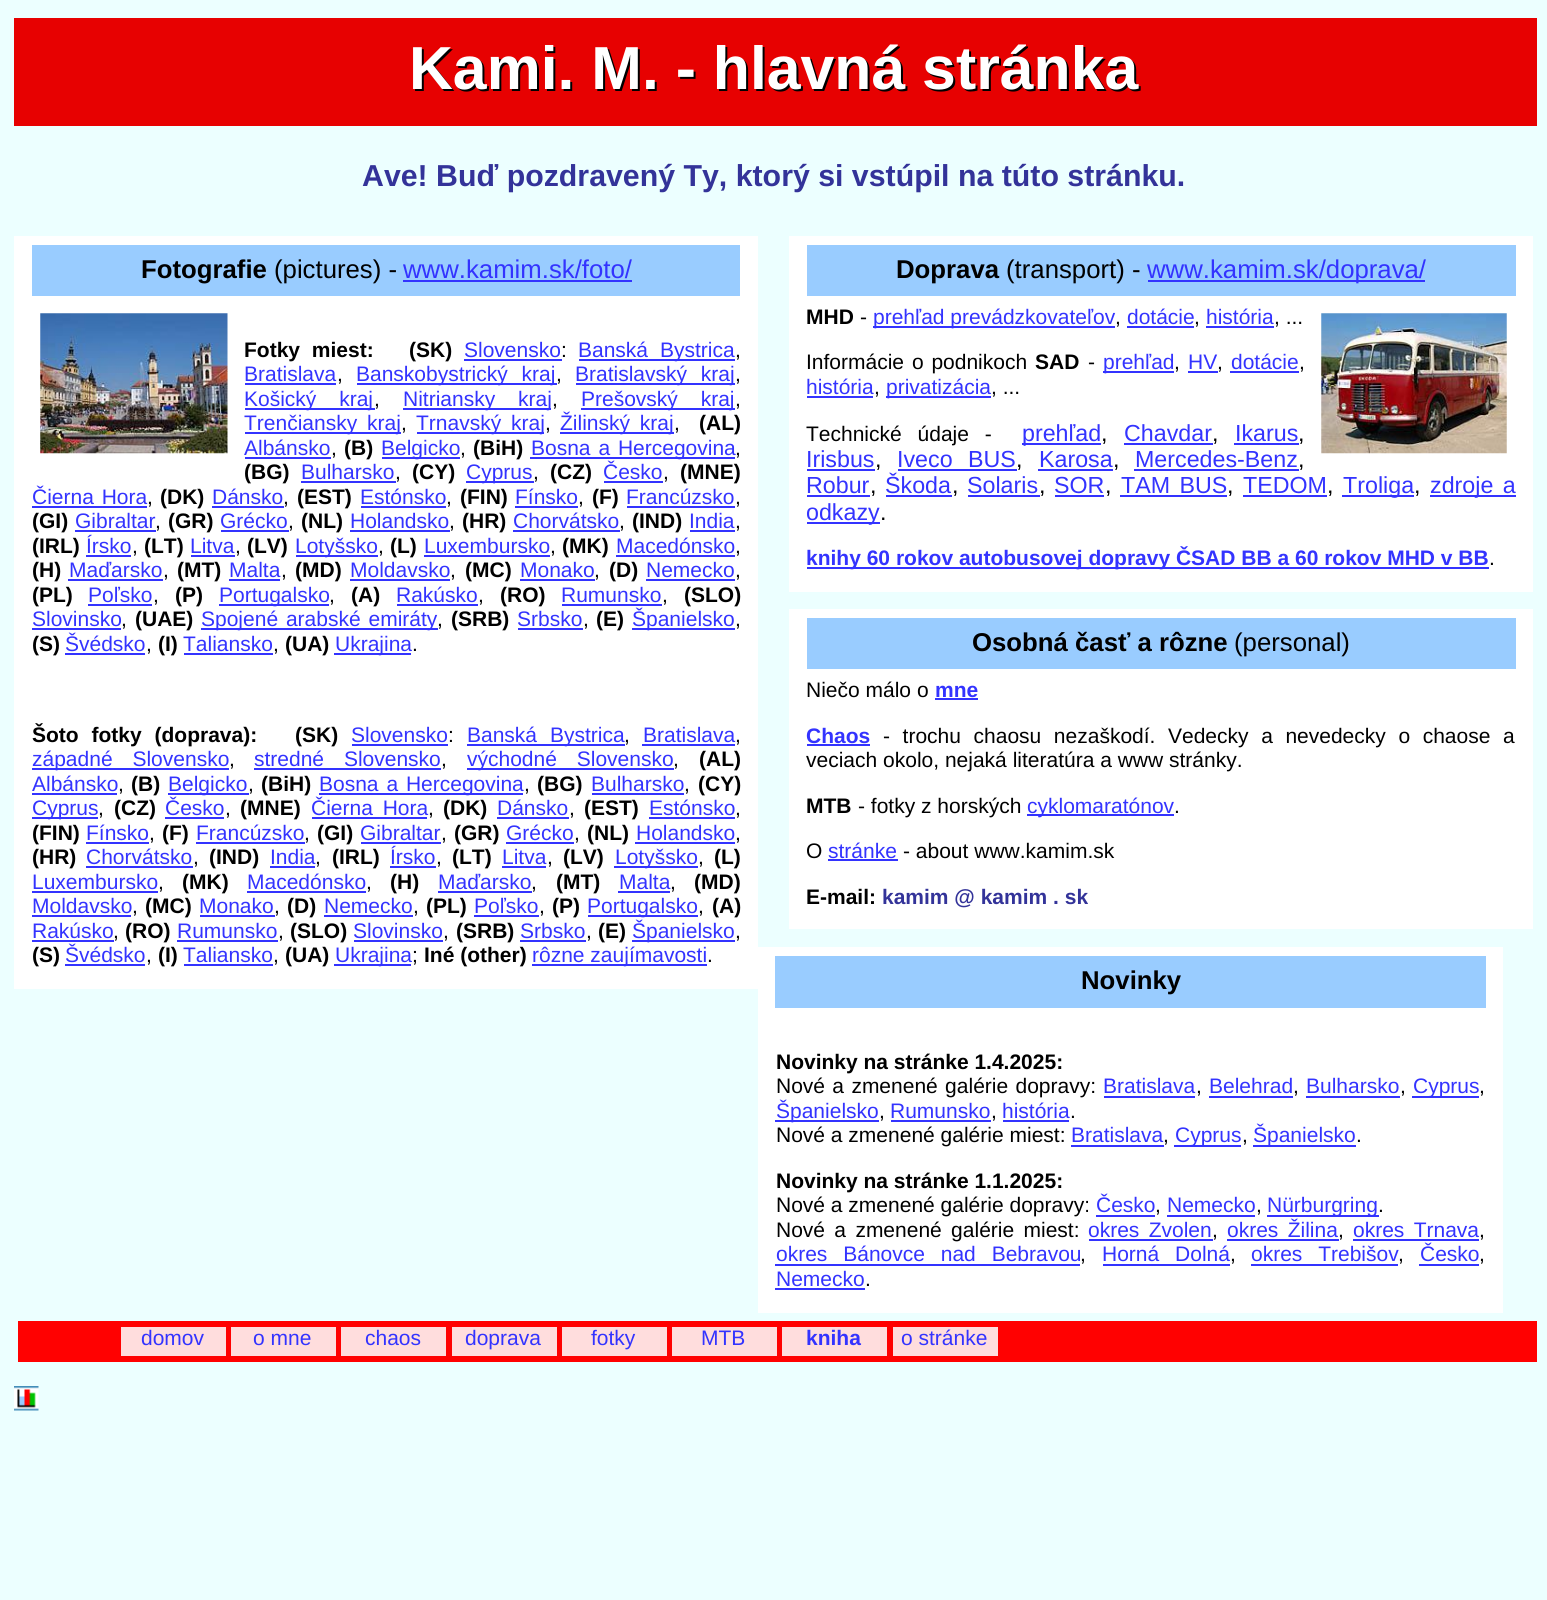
#include <cairo.h>
#include <math.h>
#include <stddef.h>


static void rgb(cairo_t *cr, int r, int g, int b)
{
	cairo_set_source_rgb(cr, r / 255.0, g / 255.0, b / 255.0);
}

static void face(cairo_t *cr, const char *family, double size, int italic, int bold)
{
	cairo_select_font_face(cr, family, italic ? CAIRO_FONT_SLANT_ITALIC : CAIRO_FONT_SLANT_NORMAL,
		bold ? CAIRO_FONT_WEIGHT_BOLD : CAIRO_FONT_WEIGHT_NORMAL);
	cairo_set_font_size(cr, size);
}

static void label(cairo_t *cr, double x, double y, const char *s)
{
	cairo_move_to(cr, x, y);
	cairo_show_text(cr, s);
}

static void tracked(cairo_t *cr, double x, double y, const char *s, double letter, double word)
{
	cairo_move_to(cr, x, y);
	while (*s) {
		char ch[5] = {0};
		int n = 0;
		do ch[n++] = *s++; while ((*s & 0xC0) == 0x80);
		cairo_show_text(cr, ch);
		cairo_rel_move_to(cr, letter + word * (*ch == ' '), 0);
	}
}

static void rect(cairo_t *cr, double x, double y, double w, double h)
{
	cairo_rectangle(cr, x, y, w, h);
	cairo_fill(cr);
}

static void image(cairo_t *cr, const char *path, double x, double y, double w, double h)
{
	cairo_surface_t *image = cairo_image_surface_create_from_png(path);
	cairo_save(cr);
	cairo_set_source_surface(cr, image, x, y);
	cairo_rectangle(cr, x, y, w, h);
	cairo_fill(cr);
	cairo_restore(cr);
	cairo_surface_destroy(image);
}

static void draw(cairo_t *cr) {
	rgb(cr, 236, 255, 255);
	cairo_paint(cr);
	rgb(cr, 231, 1, 1);
	rect(cr, 14, 18, 1523, 108);
	face(cr, "Liberation Sans", 60.75, 0, 1);
	rgb(cr, 0, 0, 0);
	label(cr, 411, 91, "Kami. M. - hlavná stránka");
	rgb(cr, 255, 255, 255);
	label(cr, 409, 89, "Kami. M. - hlavná stránka");
	face(cr, "Liberation Sans", 30.3, 0, 1);
	rgb(cr, 51, 51, 153);
	label(cr, 362, 186, "Ave! Buď pozdravený Ty, ktorý si vstúpil na túto stránku.");
	rgb(cr, 255, 255, 255);
	rect(cr, 14, 236, 744, 753);
	rgb(cr, 153, 204, 255);
	rect(cr, 32, 245, 708, 51);
	face(cr, "Liberation Sans", 25.75, 0, 1);
	rgb(cr, 0, 0, 0);
	label(cr, 141, 278, "Fotografie");
	face(cr, "Liberation Sans", 25.75, 0, 0);
	label(cr, 274, 278, "(pictures) -");
	rgb(cr, 51, 51, 255);
	label(cr, 403, 278, "www.kamim.sk/foto/");
	rect(cr, 403, 280, 229, 2);
	image(cr, "image0.png", 40, 313, 188, 141);
	face(cr, "Liberation Sans", 21, 0, 1);
	rgb(cr, 0, 0, 0);
	tracked(cr, 244, 357, "Fotky miest:", 0, 6);
	label(cr, 409, 357, "(SK)");
	face(cr, "Liberation Sans", 21, 0, 0);
	rgb(cr, 51, 51, 255);
	label(cr, 464, 357, "Slovensko");
	rect(cr, 464, 359, 98, 2);
	rgb(cr, 0, 0, 0);
	label(cr, 561, 357, ":");
	rgb(cr, 51, 51, 255);
	rect(cr, 579, 359, 156, 2);
	tracked(cr, 578, 357, "Banská Bystrica", 0, 6);
	rgb(cr, 0, 0, 0);
	label(cr, 735, 357, ",");
	rgb(cr, 51, 51, 255);
	label(cr, 244, 381, "Bratislava");
	rect(cr, 245, 383, 91, 2);
	rgb(cr, 0, 0, 0);
	label(cr, 337, 381, ",");
	rgb(cr, 51, 51, 255);
	rect(cr, 357, 383, 200, 2);
	tracked(cr, 356, 381, "Banskobystrický kraj", 0, 8);
	rgb(cr, 0, 0, 0);
	label(cr, 556, 381, ",");
	rgb(cr, 51, 51, 255);
	rect(cr, 576, 383, 159, 2);
	tracked(cr, 575, 381, "Bratislavský kraj", 0, 8);
	rgb(cr, 0, 0, 0);
	label(cr, 735, 381, ",");
	rgb(cr, 51, 51, 255);
	rect(cr, 245, 408, 130, 2);
	tracked(cr, 244, 406, "Košický kraj", 0, 17);
	rgb(cr, 0, 0, 0);
	label(cr, 374, 406, ",");
	rgb(cr, 51, 51, 255);
	rect(cr, 403, 408, 148, 2);
	tracked(cr, 403, 406, "Nitriansky kraj", 0, 17);
	rgb(cr, 0, 0, 0);
	label(cr, 552, 406, ",");
	rgb(cr, 51, 51, 255);
	rect(cr, 581, 408, 154, 2);
	tracked(cr, 581, 406, "Prešovský kraj", 0, 17);
	rgb(cr, 0, 0, 0);
	label(cr, 735, 406, ",");
	rgb(cr, 51, 51, 255);
	rect(cr, 245, 432, 156, 2);
	tracked(cr, 244, 430, "Trenčiansky kraj", 0, 4);
	rgb(cr, 0, 0, 0);
	label(cr, 401, 430, ",");
	rgb(cr, 51, 51, 255);
	rect(cr, 417, 432, 127, 2);
	tracked(cr, 416, 430, "Trnavský kraj", 0, 4);
	rgb(cr, 0, 0, 0);
	label(cr, 545, 430, ",");
	rgb(cr, 51, 51, 255);
	rect(cr, 560, 432, 114, 2);
	tracked(cr, 560, 430, "Žilinský kraj", 0, 4);
	rgb(cr, 0, 0, 0);
	label(cr, 674, 430, ",");
	face(cr, "Liberation Sans", 21, 0, 1);
	label(cr, 699, 430, "(AL)");
	face(cr, "Liberation Sans", 21, 0, 0);
	rgb(cr, 51, 51, 255);
	label(cr, 244, 455, "Albánsko");
	rect(cr, 245, 457, 86, 2);
	rgb(cr, 0, 0, 0);
	label(cr, 331, 455, ",");
	face(cr, "Liberation Sans", 21, 0, 1);
	label(cr, 344, 455, "(B)");
	rgb(cr, 51, 51, 255);
	rect(cr, 382, 457, 78, 2);
	face(cr, "Liberation Sans", 21, 0, 0);
	label(cr, 381, 455, "Belgicko");
	rgb(cr, 0, 0, 0);
	label(cr, 460, 455, ",");
	face(cr, "Liberation Sans", 21, 0, 1);
	label(cr, 473, 455, "(BiH)");
	rgb(cr, 51, 51, 255);
	rect(cr, 530, 457, 205, 2);
	face(cr, "Liberation Sans", 21, 0, 0);
	tracked(cr, 531, 455, "Bosna a Hercegovina", 0, 2);
	rgb(cr, 0, 0, 0);
	label(cr, 735, 455, ",");
	face(cr, "Liberation Sans", 21, 0, 1);
	label(cr, 244, 479, "(BG)");
	face(cr, "Liberation Sans", 21, 0, 0);
	rgb(cr, 51, 51, 255);
	label(cr, 301, 479, "Bulharsko");
	rect(cr, 301, 481, 95, 2);
	rgb(cr, 0, 0, 0);
	label(cr, 395, 479, ",");
	face(cr, "Liberation Sans", 21, 0, 1);
	label(cr, 412, 479, "(CY)");
	rgb(cr, 51, 51, 255);
	rect(cr, 466, 481, 68, 2);
	face(cr, "Liberation Sans", 21, 0, 0);
	label(cr, 466, 479, "Cyprus");
	rgb(cr, 0, 0, 0);
	label(cr, 533, 479, ",");
	face(cr, "Liberation Sans", 21, 0, 1);
	label(cr, 550, 479, "(CZ)");
	face(cr, "Liberation Sans", 21, 0, 0);
	rgb(cr, 51, 51, 255);
	label(cr, 603, 479, "Česko");
	rect(cr, 604, 481, 59, 2);
	rgb(cr, 0, 0, 0);
	label(cr, 663, 479, ",");
	face(cr, "Liberation Sans", 21, 0, 1);
	label(cr, 680, 479, "(MNE)");
	face(cr, "Liberation Sans", 21, 0, 0);
	rgb(cr, 51, 51, 255);
	tracked(cr, 32, 504, "Čierna Hora", 0, 2);
	rect(cr, 32, 506, 115, 2);
	rgb(cr, 0, 0, 0);
	label(cr, 147, 504, ",");
	face(cr, "Liberation Sans", 21, 0, 1);
	label(cr, 160, 504, "(DK)");
	face(cr, "Liberation Sans", 21, 0, 0);
	rgb(cr, 51, 51, 255);
	label(cr, 212, 504, "Dánsko");
	rect(cr, 212, 506, 72, 2);
	rgb(cr, 0, 0, 0);
	label(cr, 283, 504, ",");
	face(cr, "Liberation Sans", 21, 0, 1);
	label(cr, 297, 504, "(EST)");
	face(cr, "Liberation Sans", 21, 0, 0);
	rgb(cr, 51, 51, 255);
	label(cr, 360, 504, "Estónsko");
	rect(cr, 361, 506, 85, 2);
	rgb(cr, 0, 0, 0);
	label(cr, 446, 504, ",");
	face(cr, "Liberation Sans", 21, 0, 1);
	label(cr, 460, 504, "(FIN)");
	face(cr, "Liberation Sans", 21, 0, 0);
	rgb(cr, 51, 51, 255);
	label(cr, 515, 504, "Fínsko");
	rect(cr, 515, 506, 63, 2);
	rgb(cr, 0, 0, 0);
	label(cr, 578, 504, ",");
	face(cr, "Liberation Sans", 21, 0, 1);
	label(cr, 592, 504, "(F)");
	face(cr, "Liberation Sans", 21, 0, 0);
	rgb(cr, 51, 51, 255);
	label(cr, 626, 504, "Francúzsko");
	rect(cr, 627, 506, 108, 2);
	rgb(cr, 0, 0, 0);
	label(cr, 735, 504, ",");
	face(cr, "Liberation Sans", 21, 0, 1);
	label(cr, 32, 528, "(GI)");
	face(cr, "Liberation Sans", 21, 0, 0);
	rgb(cr, 51, 51, 255);
	label(cr, 75, 528, "Gibraltar");
	rect(cr, 75, 530, 81, 2);
	rgb(cr, 0, 0, 0);
	label(cr, 155, 528, ",");
	face(cr, "Liberation Sans", 21, 0, 1);
	label(cr, 168, 528, "(GR)");
	face(cr, "Liberation Sans", 21, 0, 0);
	rgb(cr, 51, 51, 255);
	label(cr, 220, 528, "Grécko");
	rect(cr, 221, 530, 68, 2);
	rgb(cr, 0, 0, 0);
	label(cr, 288, 528, ",");
	face(cr, "Liberation Sans", 21, 0, 1);
	label(cr, 301, 528, "(NL)");
	face(cr, "Liberation Sans", 21, 0, 0);
	rgb(cr, 51, 51, 255);
	label(cr, 350, 528, "Holandsko");
	rect(cr, 350, 530, 100, 2);
	rgb(cr, 0, 0, 0);
	label(cr, 449, 528, ",");
	face(cr, "Liberation Sans", 21, 0, 1);
	label(cr, 462, 528, "(HR)");
	face(cr, "Liberation Sans", 21, 0, 0);
	rgb(cr, 51, 51, 255);
	label(cr, 513, 528, "Chorvátsko");
	rect(cr, 513, 530, 107, 2);
	rgb(cr, 0, 0, 0);
	label(cr, 619, 528, ",");
	face(cr, "Liberation Sans", 21, 0, 1);
	label(cr, 632, 528, "(IND)");
	face(cr, "Liberation Sans", 21, 0, 0);
	rgb(cr, 51, 51, 255);
	label(cr, 689, 528, "India");
	rect(cr, 690, 530, 45, 2);
	rgb(cr, 0, 0, 0);
	label(cr, 735, 528, ",");
	face(cr, "Liberation Sans", 21, 0, 1);
	label(cr, 32, 553, "(IRL)");
	face(cr, "Liberation Sans", 21, 0, 0);
	rgb(cr, 51, 51, 255);
	label(cr, 86, 553, "Írsko");
	rect(cr, 86, 555, 45, 2);
	rgb(cr, 0, 0, 0);
	label(cr, 132, 553, ",");
	face(cr, "Liberation Sans", 21, 0, 1);
	label(cr, 144, 553, "(LT)");
	face(cr, "Liberation Sans", 21, 0, 0);
	rgb(cr, 51, 51, 255);
	label(cr, 190, 553, "Litva");
	rect(cr, 191, 555, 44, 2);
	rgb(cr, 0, 0, 0);
	label(cr, 235, 553, ",");
	face(cr, "Liberation Sans", 21, 0, 1);
	label(cr, 247, 553, "(LV)");
	rgb(cr, 51, 51, 255);
	rect(cr, 296, 555, 82, 2);
	face(cr, "Liberation Sans", 21, 0, 0);
	label(cr, 295, 553, "Lotyšsko");
	rgb(cr, 0, 0, 0);
	label(cr, 378, 553, ",");
	face(cr, "Liberation Sans", 21, 0, 1);
	label(cr, 390, 553, "(L)");
	face(cr, "Liberation Sans", 21, 0, 0);
	rgb(cr, 51, 51, 255);
	label(cr, 424, 553, "Luxembursko");
	rect(cr, 424, 555, 126, 2);
	rgb(cr, 0, 0, 0);
	label(cr, 550, 553, ",");
	face(cr, "Liberation Sans", 21, 0, 1);
	label(cr, 562, 553, "(MK)");
	face(cr, "Liberation Sans", 21, 0, 0);
	rgb(cr, 51, 51, 255);
	label(cr, 616, 553, "Macedónsko");
	rect(cr, 616, 555, 119, 2);
	rgb(cr, 0, 0, 0);
	label(cr, 735, 553, ",");
	face(cr, "Liberation Sans", 21, 0, 1);
	label(cr, 32, 577, "(H)");
	face(cr, "Liberation Sans", 21, 0, 0);
	rgb(cr, 51, 51, 255);
	label(cr, 69, 577, "Maďarsko");
	rect(cr, 68, 579, 95, 2);
	rgb(cr, 0, 0, 0);
	label(cr, 163, 577, ",");
	face(cr, "Liberation Sans", 21, 0, 1);
	label(cr, 177, 577, "(MT)");
	face(cr, "Liberation Sans", 21, 0, 0);
	rgb(cr, 51, 51, 255);
	label(cr, 229, 577, "Malta");
	rect(cr, 229, 579, 51, 2);
	rgb(cr, 0, 0, 0);
	label(cr, 281, 577, ",");
	face(cr, "Liberation Sans", 21, 0, 1);
	label(cr, 295, 577, "(MD)");
	face(cr, "Liberation Sans", 21, 0, 0);
	rgb(cr, 51, 51, 255);
	label(cr, 350, 577, "Moldavsko");
	rect(cr, 350, 579, 100, 2);
	rgb(cr, 0, 0, 0);
	label(cr, 450, 577, ",");
	face(cr, "Liberation Sans", 21, 0, 1);
	label(cr, 465, 577, "(MC)");
	face(cr, "Liberation Sans", 21, 0, 0);
	rgb(cr, 51, 51, 255);
	label(cr, 520, 577, "Monako");
	rect(cr, 520, 579, 75, 2);
	rgb(cr, 0, 0, 0);
	label(cr, 594, 577, ",");
	face(cr, "Liberation Sans", 21, 0, 1);
	label(cr, 609, 577, "(D)");
	face(cr, "Liberation Sans", 21, 0, 0);
	rgb(cr, 51, 51, 255);
	label(cr, 646, 577, "Nemecko");
	rect(cr, 646, 579, 89, 2);
	rgb(cr, 0, 0, 0);
	label(cr, 735, 577, ",");
	face(cr, "Liberation Sans", 21, 0, 1);
	label(cr, 32, 602, "(PL)");
	face(cr, "Liberation Sans", 21, 0, 0);
	rgb(cr, 51, 51, 255);
	label(cr, 88, 602, "Poľsko");
	rect(cr, 88, 604, 64, 2);
	rgb(cr, 0, 0, 0);
	label(cr, 153, 602, ",");
	face(cr, "Liberation Sans", 21, 0, 1);
	label(cr, 175, 602, "(P)");
	rgb(cr, 51, 51, 255);
	rect(cr, 219, 604, 110, 2);
	face(cr, "Liberation Sans", 21, 0, 0);
	label(cr, 219, 602, "Portugalsko");
	rgb(cr, 0, 0, 0);
	label(cr, 329, 602, ",");
	face(cr, "Liberation Sans", 21, 0, 1);
	label(cr, 351, 602, "(A)");
	face(cr, "Liberation Sans", 21, 0, 0);
	rgb(cr, 51, 51, 255);
	label(cr, 396, 602, "Rakúsko");
	rect(cr, 397, 604, 81, 2);
	rgb(cr, 0, 0, 0);
	label(cr, 478, 602, ",");
	face(cr, "Liberation Sans", 21, 0, 1);
	label(cr, 500, 602, "(RO)");
	face(cr, "Liberation Sans", 21, 0, 0);
	rgb(cr, 51, 51, 255);
	label(cr, 561, 602, "Rumunsko");
	rect(cr, 562, 604, 100, 2);
	rgb(cr, 0, 0, 0);
	label(cr, 662, 602, ",");
	face(cr, "Liberation Sans", 21, 0, 1);
	label(cr, 684, 602, "(SLO)");
	face(cr, "Liberation Sans", 21, 0, 0);
	rgb(cr, 51, 51, 255);
	label(cr, 32, 626, "Slovinsko");
	rect(cr, 32, 628, 89, 2);
	rgb(cr, 0, 0, 0);
	label(cr, 121, 626, ",");
	face(cr, "Liberation Sans", 21, 0, 1);
	label(cr, 135, 626, "(UAE)");
	rgb(cr, 51, 51, 255);
	rect(cr, 201, 628, 237, 2);
	face(cr, "Liberation Sans", 21, 0, 0);
	tracked(cr, 201, 626, "Spojené arabské emiráty", 0, 2);
	rgb(cr, 0, 0, 0);
	label(cr, 437, 626, ",");
	face(cr, "Liberation Sans", 21, 0, 1);
	label(cr, 451, 626, "(SRB)");
	face(cr, "Liberation Sans", 21, 0, 0);
	rgb(cr, 51, 51, 255);
	label(cr, 517, 626, "Srbsko");
	rect(cr, 518, 628, 65, 2);
	rgb(cr, 0, 0, 0);
	label(cr, 583, 626, ",");
	face(cr, "Liberation Sans", 21, 0, 1);
	label(cr, 596, 626, "(E)");
	rgb(cr, 51, 51, 255);
	rect(cr, 632, 628, 103, 2);
	face(cr, "Liberation Sans", 21, 0, 0);
	label(cr, 632, 626, "Španielsko");
	rgb(cr, 0, 0, 0);
	label(cr, 735, 626, ",");
	face(cr, "Liberation Sans", 21, 0, 1);
	label(cr, 32, 651, "(S)");
	face(cr, "Liberation Sans", 21, 0, 0);
	rgb(cr, 51, 51, 255);
	label(cr, 65, 651, "Švédsko");
	rect(cr, 65, 653, 80, 2);
	rgb(cr, 0, 0, 0);
	label(cr, 146, 651, ",");
	face(cr, "Liberation Sans", 21, 0, 1);
	label(cr, 158, 651, "(I)");
	face(cr, "Liberation Sans", 21, 0, 0);
	rgb(cr, 51, 51, 255);
	label(cr, 183, 651, "Taliansko");
	rect(cr, 184, 653, 89, 2);
	rgb(cr, 0, 0, 0);
	label(cr, 273, 651, ",");
	face(cr, "Liberation Sans", 21, 0, 1);
	label(cr, 285, 651, "(UA)");
	rgb(cr, 51, 51, 255);
	rect(cr, 334, 653, 77, 2);
	face(cr, "Liberation Sans", 21, 0, 0);
	label(cr, 335, 651, "Ukrajina");
	rgb(cr, 0, 0, 0);
	label(cr, 412, 651, ".");
	face(cr, "Liberation Sans", 21, 0, 1);
	tracked(cr, 32, 742, "Šoto fotky (doprava):", 0, 7);
	label(cr, 295, 742, "(SK)");
	face(cr, "Liberation Sans", 21, 0, 0);
	rgb(cr, 51, 51, 255);
	label(cr, 351, 742, "Slovensko");
	rect(cr, 352, 744, 96, 2);
	rgb(cr, 0, 0, 0);
	label(cr, 448, 742, ":");
	rgb(cr, 51, 51, 255);
	rect(cr, 467, 744, 158, 2);
	tracked(cr, 467, 742, "Banská Bystrica", 0, 7);
	rgb(cr, 0, 0, 0);
	label(cr, 624, 742, ",");
	rgb(cr, 51, 51, 255);
	label(cr, 643, 742, "Bratislava");
	rect(cr, 642, 744, 93, 2);
	rgb(cr, 0, 0, 0);
	label(cr, 735, 742, ",");
	rgb(cr, 51, 51, 255);
	rect(cr, 32, 768, 197, 2);
	tracked(cr, 32, 766, "západné Slovensko", 0, 14);
	rgb(cr, 0, 0, 0);
	label(cr, 229, 766, ",");
	rgb(cr, 51, 51, 255);
	tracked(cr, 254, 766, "stredné Slovensko", 0, 14);
	rect(cr, 254, 768, 187, 2);
	rgb(cr, 0, 0, 0);
	label(cr, 441, 766, ",");
	rgb(cr, 51, 51, 255);
	rect(cr, 467, 768, 207, 2);
	tracked(cr, 467, 766, "východné Slovensko", 0, 14);
	rgb(cr, 0, 0, 0);
	label(cr, 673, 766, ",");
	face(cr, "Liberation Sans", 21, 0, 1);
	label(cr, 699, 766, "(AL)");
	face(cr, "Liberation Sans", 21, 0, 0);
	rgb(cr, 51, 51, 255);
	label(cr, 32, 791, "Albánsko");
	rect(cr, 32, 793, 85, 2);
	rgb(cr, 0, 0, 0);
	label(cr, 118, 791, ",");
	face(cr, "Liberation Sans", 21, 0, 1);
	label(cr, 131, 791, "(B)");
	rgb(cr, 51, 51, 255);
	rect(cr, 168, 793, 81, 2);
	face(cr, "Liberation Sans", 21, 0, 0);
	label(cr, 168, 791, "Belgicko");
	rgb(cr, 0, 0, 0);
	label(cr, 248, 791, ",");
	face(cr, "Liberation Sans", 21, 0, 1);
	label(cr, 261, 791, "(BiH)");
	rgb(cr, 51, 51, 255);
	rect(cr, 319, 793, 204, 2);
	face(cr, "Liberation Sans", 21, 0, 0);
	tracked(cr, 319, 791, "Bosna a Hercegovina", 0, 2);
	rgb(cr, 0, 0, 0);
	label(cr, 524, 791, ",");
	face(cr, "Liberation Sans", 21, 0, 1);
	label(cr, 537, 791, "(BG)");
	face(cr, "Liberation Sans", 21, 0, 0);
	rgb(cr, 51, 51, 255);
	label(cr, 591, 791, "Bulharsko");
	rect(cr, 592, 793, 92, 2);
	rgb(cr, 0, 0, 0);
	label(cr, 684, 791, ",");
	face(cr, "Liberation Sans", 21, 0, 1);
	label(cr, 698, 791, "(CY)");
	rgb(cr, 51, 51, 255);
	rect(cr, 32, 817, 66, 2);
	face(cr, "Liberation Sans", 21, 0, 0);
	label(cr, 32, 815, "Cyprus");
	rgb(cr, 0, 0, 0);
	label(cr, 98, 815, ",");
	face(cr, "Liberation Sans", 21, 0, 1);
	label(cr, 114, 815, "(CZ)");
	face(cr, "Liberation Sans", 21, 0, 0);
	rgb(cr, 51, 51, 255);
	label(cr, 165, 815, "Česko");
	rect(cr, 165, 817, 59, 2);
	rgb(cr, 0, 0, 0);
	label(cr, 225, 815, ",");
	face(cr, "Liberation Sans", 21, 0, 1);
	label(cr, 240, 815, "(MNE)");
	face(cr, "Liberation Sans", 21, 0, 0);
	rgb(cr, 51, 51, 255);
	tracked(cr, 311, 815, "Čierna Hora", 0, 4);
	rect(cr, 312, 817, 115, 2);
	rgb(cr, 0, 0, 0);
	label(cr, 428, 815, ",");
	face(cr, "Liberation Sans", 21, 0, 1);
	label(cr, 443, 815, "(DK)");
	face(cr, "Liberation Sans", 21, 0, 0);
	rgb(cr, 51, 51, 255);
	label(cr, 497, 815, "Dánsko");
	rect(cr, 497, 817, 72, 2);
	rgb(cr, 0, 0, 0);
	label(cr, 569, 815, ",");
	face(cr, "Liberation Sans", 21, 0, 1);
	label(cr, 584, 815, "(EST)");
	face(cr, "Liberation Sans", 21, 0, 0);
	rgb(cr, 51, 51, 255);
	label(cr, 649, 815, "Estónsko");
	rect(cr, 649, 817, 86, 2);
	rgb(cr, 0, 0, 0);
	label(cr, 735, 815, ",");
	face(cr, "Liberation Sans", 21, 0, 1);
	label(cr, 32, 840, "(FIN)");
	face(cr, "Liberation Sans", 21, 0, 0);
	rgb(cr, 51, 51, 255);
	label(cr, 86, 840, "Fínsko");
	rect(cr, 86, 842, 63, 2);
	rgb(cr, 0, 0, 0);
	label(cr, 149, 840, ",");
	face(cr, "Liberation Sans", 21, 0, 1);
	label(cr, 162, 840, "(F)");
	face(cr, "Liberation Sans", 21, 0, 0);
	rgb(cr, 51, 51, 255);
	label(cr, 196, 840, "Francúzsko");
	rect(cr, 196, 842, 109, 2);
	rgb(cr, 0, 0, 0);
	label(cr, 304, 840, ",");
	face(cr, "Liberation Sans", 21, 0, 1);
	label(cr, 317, 840, "(GI)");
	face(cr, "Liberation Sans", 21, 0, 0);
	rgb(cr, 51, 51, 255);
	label(cr, 360, 840, "Gibraltar");
	rect(cr, 361, 842, 80, 2);
	rgb(cr, 0, 0, 0);
	label(cr, 441, 840, ",");
	face(cr, "Liberation Sans", 21, 0, 1);
	label(cr, 454, 840, "(GR)");
	face(cr, "Liberation Sans", 21, 0, 0);
	rgb(cr, 51, 51, 255);
	label(cr, 506, 840, "Grécko");
	rect(cr, 506, 842, 68, 2);
	rgb(cr, 0, 0, 0);
	label(cr, 574, 840, ",");
	face(cr, "Liberation Sans", 21, 0, 1);
	label(cr, 587, 840, "(NL)");
	face(cr, "Liberation Sans", 21, 0, 0);
	rgb(cr, 51, 51, 255);
	label(cr, 636, 840, "Holandsko");
	rect(cr, 635, 842, 100, 2);
	rgb(cr, 0, 0, 0);
	label(cr, 735, 840, ",");
	face(cr, "Liberation Sans", 21, 0, 1);
	label(cr, 32, 864, "(HR)");
	face(cr, "Liberation Sans", 21, 0, 0);
	rgb(cr, 51, 51, 255);
	label(cr, 86, 864, "Chorvátsko");
	rect(cr, 86, 866, 107, 2);
	rgb(cr, 0, 0, 0);
	label(cr, 193, 864, ",");
	face(cr, "Liberation Sans", 21, 0, 1);
	label(cr, 209, 864, "(IND)");
	face(cr, "Liberation Sans", 21, 0, 0);
	rgb(cr, 51, 51, 255);
	label(cr, 270, 864, "India");
	rect(cr, 270, 866, 45, 2);
	rgb(cr, 0, 0, 0);
	label(cr, 315, 864, ",");
	face(cr, "Liberation Sans", 21, 0, 1);
	label(cr, 332, 864, "(IRL)");
	face(cr, "Liberation Sans", 21, 0, 0);
	rgb(cr, 51, 51, 255);
	label(cr, 390, 864, "Írsko");
	rect(cr, 390, 866, 46, 2);
	rgb(cr, 0, 0, 0);
	label(cr, 436, 864, ",");
	face(cr, "Liberation Sans", 21, 0, 1);
	label(cr, 452, 864, "(LT)");
	face(cr, "Liberation Sans", 21, 0, 0);
	rgb(cr, 51, 51, 255);
	label(cr, 502, 864, "Litva");
	rect(cr, 502, 866, 44, 2);
	rgb(cr, 0, 0, 0);
	label(cr, 547, 864, ",");
	face(cr, "Liberation Sans", 21, 0, 1);
	label(cr, 563, 864, "(LV)");
	rgb(cr, 51, 51, 255);
	rect(cr, 614, 866, 84, 2);
	face(cr, "Liberation Sans", 21, 0, 0);
	label(cr, 615, 864, "Lotyšsko");
	rgb(cr, 0, 0, 0);
	label(cr, 698, 864, ",");
	face(cr, "Liberation Sans", 21, 0, 1);
	label(cr, 714, 864, "(L)");
	face(cr, "Liberation Sans", 21, 0, 0);
	rgb(cr, 51, 51, 255);
	label(cr, 32, 889, "Luxembursko");
	rect(cr, 32, 891, 126, 2);
	rgb(cr, 0, 0, 0);
	label(cr, 158, 889, ",");
	face(cr, "Liberation Sans", 21, 0, 1);
	label(cr, 182, 889, "(MK)");
	face(cr, "Liberation Sans", 21, 0, 0);
	rgb(cr, 51, 51, 255);
	label(cr, 247, 889, "Macedónsko");
	rect(cr, 247, 891, 119, 2);
	rgb(cr, 0, 0, 0);
	label(cr, 366, 889, ",");
	face(cr, "Liberation Sans", 21, 0, 1);
	label(cr, 390, 889, "(H)");
	face(cr, "Liberation Sans", 21, 0, 0);
	rgb(cr, 51, 51, 255);
	label(cr, 438, 889, "Maďarsko");
	rect(cr, 438, 891, 94, 2);
	rgb(cr, 0, 0, 0);
	label(cr, 531, 889, ",");
	face(cr, "Liberation Sans", 21, 0, 1);
	label(cr, 556, 889, "(MT)");
	face(cr, "Liberation Sans", 21, 0, 0);
	rgb(cr, 51, 51, 255);
	label(cr, 619, 889, "Malta");
	rect(cr, 618, 891, 52, 2);
	rgb(cr, 0, 0, 0);
	label(cr, 670, 889, ",");
	face(cr, "Liberation Sans", 21, 0, 1);
	label(cr, 694, 889, "(MD)");
	face(cr, "Liberation Sans", 21, 0, 0);
	rgb(cr, 51, 51, 255);
	label(cr, 32, 913, "Moldavsko");
	rect(cr, 32, 915, 99, 2);
	rgb(cr, 0, 0, 0);
	label(cr, 132, 913, ",");
	face(cr, "Liberation Sans", 21, 0, 1);
	label(cr, 145, 913, "(MC)");
	face(cr, "Liberation Sans", 21, 0, 0);
	rgb(cr, 51, 51, 255);
	label(cr, 199, 913, "Monako");
	rect(cr, 200, 915, 75, 2);
	rgb(cr, 0, 0, 0);
	label(cr, 274, 913, ",");
	face(cr, "Liberation Sans", 21, 0, 1);
	label(cr, 287, 913, "(D)");
	face(cr, "Liberation Sans", 21, 0, 0);
	rgb(cr, 51, 51, 255);
	label(cr, 324, 913, "Nemecko");
	rect(cr, 324, 915, 89, 2);
	rgb(cr, 0, 0, 0);
	label(cr, 413, 913, ",");
	face(cr, "Liberation Sans", 21, 0, 1);
	label(cr, 426, 913, "(PL)");
	face(cr, "Liberation Sans", 21, 0, 0);
	rgb(cr, 51, 51, 255);
	label(cr, 474, 913, "Poľsko");
	rect(cr, 474, 915, 65, 2);
	rgb(cr, 0, 0, 0);
	label(cr, 539, 913, ",");
	face(cr, "Liberation Sans", 21, 0, 1);
	label(cr, 552, 913, "(P)");
	rgb(cr, 51, 51, 255);
	rect(cr, 588, 915, 110, 2);
	face(cr, "Liberation Sans", 21, 0, 0);
	label(cr, 587, 913, "Portugalsko");
	rgb(cr, 0, 0, 0);
	label(cr, 698, 913, ",");
	face(cr, "Liberation Sans", 21, 0, 1);
	label(cr, 712, 913, "(A)");
	face(cr, "Liberation Sans", 21, 0, 0);
	rgb(cr, 51, 51, 255);
	label(cr, 32, 938, "Rakúsko");
	rect(cr, 32, 940, 82, 2);
	rgb(cr, 0, 0, 0);
	label(cr, 113, 938, ",");
	face(cr, "Liberation Sans", 21, 0, 1);
	label(cr, 125, 938, "(RO)");
	face(cr, "Liberation Sans", 21, 0, 0);
	rgb(cr, 51, 51, 255);
	label(cr, 177, 938, "Rumunsko");
	rect(cr, 177, 940, 101, 2);
	rgb(cr, 0, 0, 0);
	label(cr, 278, 938, ",");
	face(cr, "Liberation Sans", 21, 0, 1);
	label(cr, 290, 938, "(SLO)");
	face(cr, "Liberation Sans", 21, 0, 0);
	rgb(cr, 51, 51, 255);
	label(cr, 353, 938, "Slovinsko");
	rect(cr, 354, 940, 89, 2);
	rgb(cr, 0, 0, 0);
	label(cr, 443, 938, ",");
	face(cr, "Liberation Sans", 21, 0, 1);
	label(cr, 456, 938, "(SRB)");
	face(cr, "Liberation Sans", 21, 0, 0);
	rgb(cr, 51, 51, 255);
	label(cr, 520, 938, "Srbsko");
	rect(cr, 520, 940, 66, 2);
	rgb(cr, 0, 0, 0);
	label(cr, 586, 938, ",");
	face(cr, "Liberation Sans", 21, 0, 1);
	label(cr, 598, 938, "(E)");
	rgb(cr, 51, 51, 255);
	rect(cr, 632, 940, 103, 2);
	face(cr, "Liberation Sans", 21, 0, 0);
	label(cr, 632, 938, "Španielsko");
	rgb(cr, 0, 0, 0);
	label(cr, 735, 938, ",");
	face(cr, "Liberation Sans", 21, 0, 1);
	label(cr, 32, 962, "(S)");
	face(cr, "Liberation Sans", 21, 0, 0);
	rgb(cr, 51, 51, 255);
	label(cr, 65, 962, "Švédsko");
	rect(cr, 65, 964, 80, 2);
	rgb(cr, 0, 0, 0);
	label(cr, 146, 962, ",");
	face(cr, "Liberation Sans", 21, 0, 1);
	label(cr, 158, 962, "(I)");
	face(cr, "Liberation Sans", 21, 0, 0);
	rgb(cr, 51, 51, 255);
	label(cr, 183, 962, "Taliansko");
	rect(cr, 184, 964, 89, 2);
	rgb(cr, 0, 0, 0);
	label(cr, 273, 962, ",");
	face(cr, "Liberation Sans", 21, 0, 1);
	label(cr, 285, 962, "(UA)");
	rgb(cr, 51, 51, 255);
	rect(cr, 334, 964, 77, 2);
	face(cr, "Liberation Sans", 21, 0, 0);
	label(cr, 335, 962, "Ukrajina");
	rgb(cr, 0, 0, 0);
	label(cr, 412, 962, ";");
	face(cr, "Liberation Sans", 21, 0, 1);
	label(cr, 424, 962, "Iné (other)");
	rgb(cr, 51, 51, 255);
	rect(cr, 532, 964, 175, 2);
	face(cr, "Liberation Sans", 21, 0, 0);
	label(cr, 532, 962, "rôzne zaujímavosti");
	rgb(cr, 0, 0, 0);
	label(cr, 707, 962, ".");
	rgb(cr, 255, 255, 255);
	rect(cr, 789, 236, 744, 356);
	rgb(cr, 153, 204, 255);
	rect(cr, 807, 245, 709, 51);
	face(cr, "Liberation Sans", 25.75, 0, 1);
	rgb(cr, 0, 0, 0);
	label(cr, 896, 278, "Doprava");
	face(cr, "Liberation Sans", 25.75, 0, 0);
	label(cr, 1006, 278, "(transport) -");
	rgb(cr, 51, 51, 255);
	rect(cr, 1148, 280, 277, 2);
	label(cr, 1147, 278, "www.kamim.sk/doprava/");
	face(cr, "Liberation Sans", 21, 0, 1);
	rgb(cr, 0, 0, 0);
	label(cr, 806, 324, "MHD");
	face(cr, "Liberation Sans", 21, 0, 0);
	label(cr, 860, 324, "-");
	rgb(cr, 51, 51, 255);
	rect(cr, 873, 326, 242, 2);
	label(cr, 873, 324, "prehľad prevádzkovateľov");
	label(cr, 1127, 324, "dotácie");
	rect(cr, 1127, 326, 67, 2);
	label(cr, 1206, 324, "história");
	rect(cr, 1206, 326, 68, 2);
	image(cr, "image1.png", 1321, 313, 186, 141);
	rgb(cr, 0, 0, 0);
	label(cr, 1115, 324, ",");
	label(cr, 1194, 324, ",");
	label(cr, 1274, 324, ", ...");
	tracked(cr, 806, 369, "Informácie o podnikoch", 0, 2);
	face(cr, "Liberation Sans", 21, 0, 1);
	label(cr, 1035, 369, "SAD");
	face(cr, "Liberation Sans", 21, 0, 0);
	label(cr, 1088, 369, "-");
	rgb(cr, 51, 51, 255);
	rect(cr, 1103, 371, 71, 2);
	label(cr, 1103, 369, "prehľad");
	label(cr, 1188, 369, "HV");
	rect(cr, 1188, 371, 30, 2);
	label(cr, 1231, 369, "dotácie");
	rect(cr, 1230, 371, 69, 2);
	rgb(cr, 0, 0, 0);
	label(cr, 1174, 369, ",");
	label(cr, 1217, 369, ",");
	label(cr, 1299, 369, ",");
	rgb(cr, 51, 51, 255);
	label(cr, 806, 394, "história");
	rect(cr, 807, 396, 66, 2);
	rgb(cr, 0, 0, 0);
	label(cr, 874, 394, ",");
	rgb(cr, 51, 51, 255);
	rect(cr, 886, 396, 105, 2);
	label(cr, 886, 394, "privatizácia");
	rgb(cr, 0, 0, 0);
	label(cr, 991, 394, ", ...");
	tracked(cr, 806, 441, "Technické údaje -", 0, 10);
	rgb(cr, 51, 51, 255);
	rect(cr, 1022, 443, 79, 2);
	face(cr, "Liberation Sans", 23.25, 0, 0);
	label(cr, 1022, 441, "prehľad");
	rgb(cr, 0, 0, 0);
	label(cr, 1101, 441, ",");
	rgb(cr, 51, 51, 255);
	label(cr, 1124, 441, "Chavdar");
	rgb(cr, 0, 0, 0);
	label(cr, 1212, 441, ",");
	rgb(cr, 51, 51, 255);
	rect(cr, 1124, 443, 89, 2);
	label(cr, 1235, 441, "Ikarus");
	rgb(cr, 0, 0, 0);
	label(cr, 1298, 441, ",");
	rgb(cr, 51, 51, 255);
	rect(cr, 1234, 443, 65, 2);
	label(cr, 806, 467, "Irisbus");
	rgb(cr, 0, 0, 0);
	label(cr, 875, 467, ",");
	rgb(cr, 51, 51, 255);
	rect(cr, 807, 469, 68, 2);
	tracked(cr, 897, 467, "Iveco BUS", 0, 9);
	rgb(cr, 0, 0, 0);
	label(cr, 1016, 467, ",");
	rgb(cr, 51, 51, 255);
	rect(cr, 898, 469, 119, 2);
	label(cr, 1039, 467, "Karosa");
	rgb(cr, 0, 0, 0);
	label(cr, 1113, 467, ",");
	rgb(cr, 51, 51, 255);
	rect(cr, 1038, 469, 75, 2);
	label(cr, 1135, 467, "Mercedes-Benz");
	rgb(cr, 0, 0, 0);
	label(cr, 1298, 467, ",");
	rgb(cr, 51, 51, 255);
	rect(cr, 1134, 469, 165, 2);
	label(cr, 806, 493, "Robur");
	rgb(cr, 0, 0, 0);
	label(cr, 870, 493, ",");
	rgb(cr, 51, 51, 255);
	rect(cr, 807, 495, 63, 2);
	label(cr, 885, 493, "Škoda");
	rgb(cr, 0, 0, 0);
	label(cr, 952, 493, ",");
	rgb(cr, 51, 51, 255);
	rect(cr, 886, 495, 66, 2);
	label(cr, 967, 493, "Solaris");
	rgb(cr, 0, 0, 0);
	label(cr, 1039, 493, ",");
	rgb(cr, 51, 51, 255);
	rect(cr, 968, 495, 72, 2);
	label(cr, 1054, 493, "SOR");
	rgb(cr, 0, 0, 0);
	label(cr, 1105, 493, ",");
	rgb(cr, 51, 51, 255);
	rect(cr, 1055, 495, 49, 2);
	tracked(cr, 1121, 493, "TAM BUS", 0, 3);
	rgb(cr, 0, 0, 0);
	label(cr, 1227, 493, ",");
	rgb(cr, 51, 51, 255);
	rect(cr, 1120, 495, 107, 2);
	label(cr, 1243, 493, "TEDOM");
	rgb(cr, 0, 0, 0);
	label(cr, 1327, 493, ",");
	rgb(cr, 51, 51, 255);
	rect(cr, 1243, 495, 84, 2);
	rect(cr, 1342, 495, 72, 2);
	label(cr, 1343, 493, "Troliga");
	rgb(cr, 0, 0, 0);
	label(cr, 1414, 493, ",");
	rgb(cr, 51, 51, 255);
	rect(cr, 1430, 495, 86, 2);
	tracked(cr, 1430, 493, "zdroje a", 0, 3);
	rect(cr, 807, 522, 73, 2);
	label(cr, 806, 520, "odkazy");
	rgb(cr, 0, 0, 0);
	label(cr, 880, 520, ".");
	rgb(cr, 51, 51, 255);
	rect(cr, 807, 567, 682, 2);
	face(cr, "Liberation Sans", 21, 0, 1);
	label(cr, 806, 565, "knihy 60 rokov autobusovej dopravy ČSAD BB a 60 rokov MHD v BB");
	face(cr, "Liberation Sans", 21, 0, 0);
	rgb(cr, 0, 0, 0);
	label(cr, 1489, 565, ".");
	rgb(cr, 255, 255, 255);
	rect(cr, 789, 609, 744, 320);
	rgb(cr, 153, 204, 255);
	rect(cr, 807, 618, 709, 51);
	face(cr, "Liberation Sans", 25.75, 0, 1);
	rgb(cr, 0, 0, 0);
	label(cr, 972, 651, "Osobná časť a rôzne");
	face(cr, "Liberation Sans", 25.75, 0, 0);
	label(cr, 1234, 651, "(personal)");
	face(cr, "Liberation Sans", 21, 0, 0);
	label(cr, 806, 697, "Niečo málo o");
	face(cr, "Liberation Sans", 21, 0, 1);
	rgb(cr, 51, 51, 255);
	label(cr, 935, 697, "mne");
	rect(cr, 935, 698, 43, 2);
	label(cr, 806, 743, "Chaos");
	rect(cr, 807, 744, 63, 2);
	face(cr, "Liberation Sans", 21, 0, 0);
	rgb(cr, 0, 0, 0);
	tracked(cr, 883, 743, "- trochu chaosu nezaškodí. Vedecky a nevedecky o chaose a", 0, 6.75);
	label(cr, 806, 767, "veciach okolo, nejaká literatúra a www stránky.");
	face(cr, "Liberation Sans", 21, 0, 1);
	label(cr, 806, 813, "MTB");
	face(cr, "Liberation Sans", 21, 0, 0);
	label(cr, 858, 813, "- fotky z horských");
	rgb(cr, 51, 51, 255);
	rect(cr, 1027, 814, 147, 2);
	label(cr, 1027, 813, "cyklomaratónov");
	rgb(cr, 0, 0, 0);
	label(cr, 1174, 813, ".");
	label(cr, 806, 858, "O");
	rgb(cr, 51, 51, 255);
	label(cr, 828, 858, "stránke");
	rect(cr, 828, 859, 70, 2);
	rgb(cr, 0, 0, 0);
	label(cr, 903, 858, "- about www.kamim.sk");
	face(cr, "Liberation Sans", 21, 0, 1);
	label(cr, 806, 904, "E-mail:");
	rgb(cr, 51, 51, 153);
	label(cr, 882, 904, "kamim @ kamim . sk");
	rgb(cr, 255, 255, 255);
	rect(cr, 758, 947, 745, 366);
	rgb(cr, 153, 204, 255);
	rect(cr, 775, 956, 711, 52);
	face(cr, "Liberation Sans", 25.75, 0, 1);
	rgb(cr, 0, 0, 0);
	label(cr, 1081, 989, "Novinky");
	face(cr, "Liberation Sans", 21, 0, 1);
	label(cr, 776, 1069, "Novinky na stránke 1.4.2025:");
	face(cr, "Liberation Sans", 21, 0, 0);
	tracked(cr, 776, 1093, "Nové a zmenené galérie dopravy:", 0, 1.5);
	rgb(cr, 51, 51, 255);
	label(cr, 1103, 1093, "Bratislava");
	rect(cr, 1104, 1096, 91, 2);
	rgb(cr, 0, 0, 0);
	label(cr, 1196, 1093, ",");
	rgb(cr, 51, 51, 255);
	label(cr, 1209, 1093, "Belehrad");
	rect(cr, 1209, 1096, 84, 2);
	rgb(cr, 0, 0, 0);
	label(cr, 1293, 1093, ",");
	rgb(cr, 51, 51, 255);
	label(cr, 1306, 1093, "Bulharsko");
	rect(cr, 1306, 1096, 94, 2);
	rgb(cr, 0, 0, 0);
	label(cr, 1400, 1093, ",");
	rgb(cr, 51, 51, 255);
	rect(cr, 1412, 1096, 67, 2);
	label(cr, 1413, 1093, "Cyprus");
	rgb(cr, 0, 0, 0);
	label(cr, 1479, 1093, ",");
	rgb(cr, 51, 51, 255);
	rect(cr, 775, 1120, 104, 2);
	label(cr, 776, 1118, "Španielsko");
	rgb(cr, 0, 0, 0);
	label(cr, 879, 1118, ",");
	rgb(cr, 51, 51, 255);
	label(cr, 890, 1118, "Rumunsko");
	rect(cr, 891, 1120, 100, 2);
	rgb(cr, 0, 0, 0);
	label(cr, 991, 1118, ",");
	rgb(cr, 51, 51, 255);
	label(cr, 1002, 1118, "história");
	rect(cr, 1003, 1120, 66, 2);
	rgb(cr, 0, 0, 0);
	label(cr, 1070, 1118, ".");
	label(cr, 776, 1142, "Nové a zmenené galérie miest:");
	rgb(cr, 51, 51, 255);
	label(cr, 1071, 1142, "Bratislava");
	rect(cr, 1071, 1145, 93, 2);
	rgb(cr, 0, 0, 0);
	label(cr, 1163, 1142, ",");
	rgb(cr, 51, 51, 255);
	rect(cr, 1174, 1145, 67, 2);
	label(cr, 1175, 1142, "Cyprus");
	rgb(cr, 0, 0, 0);
	label(cr, 1242, 1142, ",");
	rgb(cr, 51, 51, 255);
	rect(cr, 1253, 1145, 103, 2);
	label(cr, 1253, 1142, "Španielsko");
	rgb(cr, 0, 0, 0);
	label(cr, 1356, 1142, ".");
	face(cr, "Liberation Sans", 21, 0, 1);
	label(cr, 776, 1188, "Novinky na stránke 1.1.2025:");
	face(cr, "Liberation Sans", 21, 0, 0);
	label(cr, 776, 1212, "Nové a zmenené galérie dopravy:");
	rgb(cr, 51, 51, 255);
	label(cr, 1096, 1212, "Česko");
	rect(cr, 1096, 1215, 59, 2);
	rgb(cr, 0, 0, 0);
	label(cr, 1155, 1212, ",");
	rgb(cr, 51, 51, 255);
	label(cr, 1167, 1212, "Nemecko");
	rect(cr, 1167, 1215, 88, 2);
	rgb(cr, 0, 0, 0);
	label(cr, 1256, 1212, ",");
	rgb(cr, 51, 51, 255);
	rect(cr, 1267, 1215, 112, 2);
	label(cr, 1267, 1212, "Nürburgring");
	rgb(cr, 0, 0, 0);
	label(cr, 1378, 1212, ".");
	tracked(cr, 776, 1237, "Nové a zmenené galérie miest:", 0, 3.5);
	rgb(cr, 51, 51, 255);
	tracked(cr, 1088, 1237, "okres Zvolen", 0, 3.5);
	rect(cr, 1089, 1239, 124, 2);
	rgb(cr, 0, 0, 0);
	label(cr, 1212, 1237, ",");
	rgb(cr, 51, 51, 255);
	tracked(cr, 1227, 1237, "okres Žilina", 0, 3.5);
	rect(cr, 1227, 1239, 112, 2);
	rgb(cr, 0, 0, 0);
	label(cr, 1338, 1237, ",");
	rgb(cr, 51, 51, 255);
	tracked(cr, 1353, 1237, "okres Trnava", 0, 3.5);
	rect(cr, 1353, 1239, 126, 2);
	rgb(cr, 0, 0, 0);
	label(cr, 1479, 1237, ",");
	rgb(cr, 51, 51, 255);
	tracked(cr, 776, 1261, "okres Bánovce nad Bebravou", 0, 10);
	rect(cr, 775, 1264, 305, 2);
	rgb(cr, 0, 0, 0);
	label(cr, 1080, 1261, ",");
	rgb(cr, 51, 51, 255);
	tracked(cr, 1102, 1261, "Horná Dolná", 0, 10);
	rect(cr, 1103, 1264, 127, 2);
	rgb(cr, 0, 0, 0);
	label(cr, 1230, 1261, ",");
	rgb(cr, 51, 51, 255);
	tracked(cr, 1251, 1261, "okres Trebišov", 0, 10);
	rect(cr, 1251, 1264, 147, 2);
	rgb(cr, 0, 0, 0);
	label(cr, 1398, 1261, ",");
	rgb(cr, 51, 51, 255);
	label(cr, 1420, 1261, "Česko");
	rect(cr, 1419, 1264, 60, 2);
	rgb(cr, 0, 0, 0);
	label(cr, 1479, 1261, ",");
	rgb(cr, 51, 51, 255);
	label(cr, 776, 1286, "Nemecko");
	rect(cr, 775, 1288, 90, 2);
	rgb(cr, 0, 0, 0);
	label(cr, 865, 1286, ".");
	rgb(cr, 255, 1, 1);
	rect(cr, 18, 1321, 1519, 41);
	rgb(cr, 255, 221, 221);
	rect(cr, 121, 1327, 105, 29);
	rgb(cr, 51, 51, 255);
	label(cr, 141, 1345, "domov");
	rgb(cr, 255, 221, 221);
	rect(cr, 231, 1327, 105, 29);
	rgb(cr, 51, 51, 255);
	label(cr, 253, 1345, "o mne");
	rgb(cr, 255, 221, 221);
	rect(cr, 341, 1327, 105, 29);
	rgb(cr, 51, 51, 255);
	label(cr, 365, 1345, "chaos");
	rgb(cr, 255, 221, 221);
	rect(cr, 452, 1327, 105, 29);
	rgb(cr, 51, 51, 255);
	label(cr, 465, 1345, "doprava");
	rgb(cr, 255, 221, 221);
	rect(cr, 562, 1327, 105, 29);
	rgb(cr, 51, 51, 255);
	label(cr, 591, 1345, "fotky");
	rgb(cr, 255, 221, 221);
	rect(cr, 672, 1327, 105, 29);
	rgb(cr, 51, 51, 255);
	label(cr, 701, 1345, "MTB");
	rgb(cr, 255, 221, 221);
	rect(cr, 782, 1327, 105, 29);
	face(cr, "Liberation Sans", 21, 0, 1);
	rgb(cr, 51, 51, 255);
	label(cr, 806, 1345, "kniha");
	rgb(cr, 255, 221, 221);
	rect(cr, 893, 1327, 105, 29);
	face(cr, "Liberation Sans", 21, 0, 0);
	rgb(cr, 51, 51, 255);
	label(cr, 901, 1345, "o stránke");
	image(cr, "image2.png", 14, 1386, 25, 25);
}

int main(void) {
	cairo_surface_t *surface = cairo_image_surface_create(CAIRO_FORMAT_RGB24, 1547, 1600);
	cairo_t *cr = cairo_create(surface);
	cairo_font_options_t *options = cairo_font_options_create();
	cairo_font_options_set_hint_metrics(options, CAIRO_HINT_METRICS_OFF);
	cairo_font_options_set_hint_style(options, CAIRO_HINT_STYLE_NONE);
	cairo_set_font_options(cr, options);
	cairo_set_miter_limit(cr, 4);
	draw(cr);
	cairo_surface_write_to_png(surface, "render.png");
	cairo_font_options_destroy(options);
	cairo_destroy(cr);
	cairo_surface_destroy(surface);
	return 0;
}
